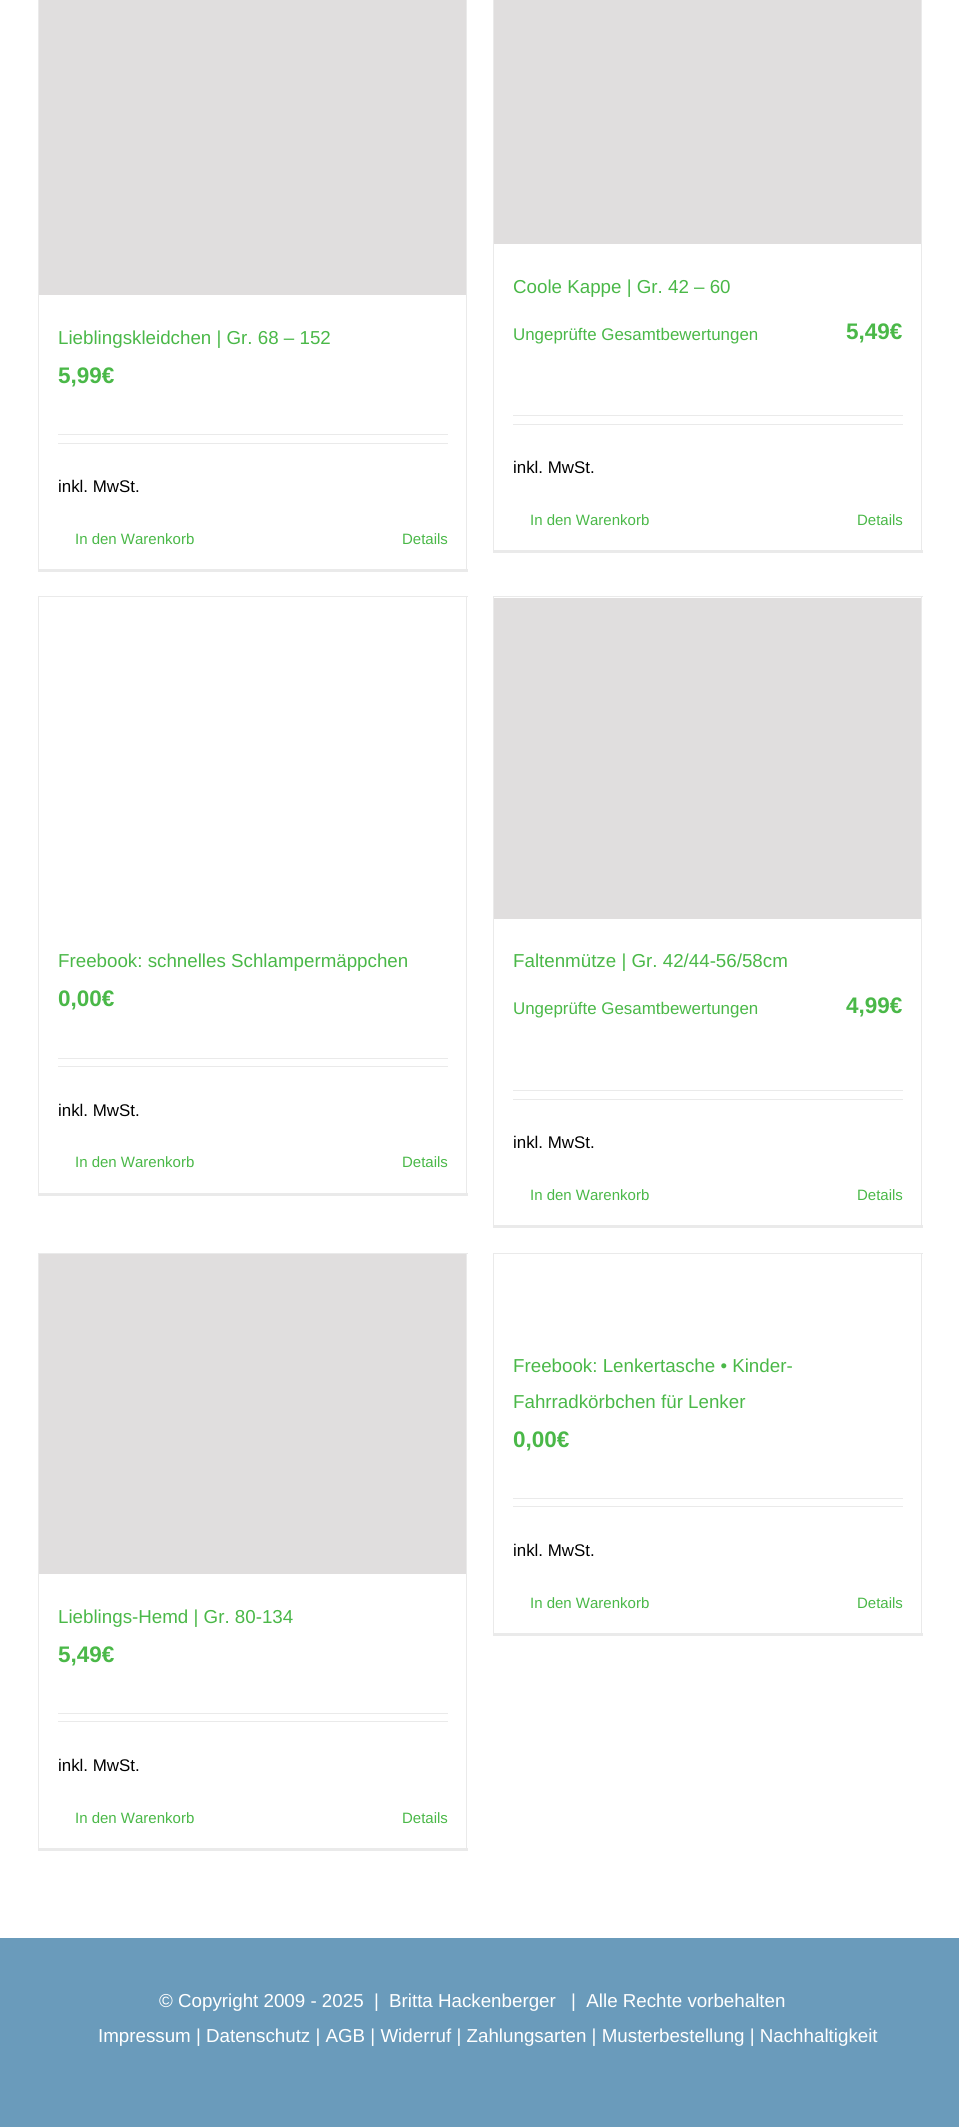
#include <cairo.h>
#include <math.h>
#include <stddef.h>


static void rgb(cairo_t *cr, int r, int g, int b)
{
	cairo_set_source_rgb(cr, r / 255.0, g / 255.0, b / 255.0);
}

static void face(cairo_t *cr, const char *family, double size, int italic, int bold)
{
	cairo_select_font_face(cr, family, italic ? CAIRO_FONT_SLANT_ITALIC : CAIRO_FONT_SLANT_NORMAL,
		bold ? CAIRO_FONT_WEIGHT_BOLD : CAIRO_FONT_WEIGHT_NORMAL);
	cairo_set_font_size(cr, size);
}

static void label(cairo_t *cr, double x, double y, const char *s)
{
	cairo_move_to(cr, x, y);
	cairo_show_text(cr, s);
}

static void rect(cairo_t *cr, double x, double y, double w, double h)
{
	cairo_rectangle(cr, x, y, w, h);
	cairo_fill(cr);
}

static void draw(cairo_t *cr) {
	rgb(cr, 255, 255, 255);
	cairo_paint(cr);
	rgb(cr, 234, 234, 234);
	rect(cr, 466, 0, 1, 571);
	rect(cr, 38, 569, 430, 3);
	rect(cr, 38, 0, 1, 571);
	rgb(cr, 224, 222, 222);
	rect(cr, 39, 0, 427, 295);
	face(cr, "Liberation Sans", 18.75, 0, 0);
	rgb(cr, 74, 184, 72);
	label(cr, 58, 344, "Lieblingskleidchen | Gr. 68 – 152");
	face(cr, "Liberation Sans", 22.5, 0, 1);
	label(cr, 58, 383, "5,99€");
	rgb(cr, 234, 234, 234);
	rect(cr, 58, 434, 390, 1);
	rect(cr, 58, 443, 390, 1);
	face(cr, "Liberation Sans", 16.9, 0, 0);
	rgb(cr, 0, 0, 0);
	label(cr, 58, 492, "inkl. MwSt.");
	face(cr, "Liberation Sans", 15, 0, 0);
	rgb(cr, 74, 184, 72);
	label(cr, 75, 544, "In den Warenkorb");
	label(cr, 402, 544, "Details");
	rgb(cr, 234, 234, 234);
	rect(cr, 921, 0, 1, 553);
	rect(cr, 493, 550, 430, 3);
	rect(cr, 493, 0, 1, 553);
	rgb(cr, 224, 222, 222);
	rect(cr, 494, 0, 427, 244);
	face(cr, "Liberation Sans", 18.75, 0, 0);
	rgb(cr, 74, 184, 72);
	label(cr, 513, 293, "Coole Kappe | Gr. 42 – 60");
	face(cr, "Liberation Sans", 16.9, 0, 0);
	label(cr, 513, 340, "Ungeprüfte Gesamtbewertungen");
	face(cr, "Liberation Sans", 22.5, 0, 1);
	label(cr, 846, 339, "5,49€");
	rgb(cr, 234, 234, 234);
	rect(cr, 513, 415, 390, 1);
	rect(cr, 513, 424, 390, 1);
	face(cr, "Liberation Sans", 16.9, 0, 0);
	rgb(cr, 0, 0, 0);
	label(cr, 513, 473, "inkl. MwSt.");
	face(cr, "Liberation Sans", 15, 0, 0);
	rgb(cr, 74, 184, 72);
	label(cr, 530, 525, "In den Warenkorb");
	label(cr, 857, 525, "Details");
	rgb(cr, 234, 234, 234);
	rect(cr, 38, 596, 430, 1);
	rect(cr, 466, 596, 1, 599);
	rect(cr, 38, 1193, 430, 3);
	rect(cr, 38, 596, 1, 599);
	face(cr, "Liberation Sans", 18.75, 0, 0);
	rgb(cr, 74, 184, 72);
	label(cr, 58, 967, "Freebook: schnelles Schlampermäppchen");
	face(cr, "Liberation Sans", 22.5, 0, 1);
	label(cr, 58, 1006, "0,00€");
	rgb(cr, 234, 234, 234);
	rect(cr, 58, 1058, 390, 1);
	rect(cr, 58, 1066, 390, 1);
	face(cr, "Liberation Sans", 16.9, 0, 0);
	rgb(cr, 0, 0, 0);
	label(cr, 58, 1116, "inkl. MwSt.");
	face(cr, "Liberation Sans", 15, 0, 0);
	rgb(cr, 74, 184, 72);
	label(cr, 75, 1167, "In den Warenkorb");
	label(cr, 402, 1167, "Details");
	rgb(cr, 234, 234, 234);
	rect(cr, 493, 596, 430, 1);
	rect(cr, 921, 596, 1, 632);
	rect(cr, 493, 1225, 430, 3);
	rect(cr, 493, 596, 1, 632);
	rgb(cr, 224, 222, 222);
	rect(cr, 494, 598, 427, 321);
	face(cr, "Liberation Sans", 18.75, 0, 0);
	rgb(cr, 74, 184, 72);
	label(cr, 513, 967, "Faltenmütze | Gr. 42/44-56/58cm");
	face(cr, "Liberation Sans", 16.9, 0, 0);
	label(cr, 513, 1014, "Ungeprüfte Gesamtbewertungen");
	face(cr, "Liberation Sans", 22.5, 0, 1);
	label(cr, 846, 1013, "4,99€");
	rgb(cr, 234, 234, 234);
	rect(cr, 513, 1090, 390, 1);
	rect(cr, 513, 1099, 390, 1);
	face(cr, "Liberation Sans", 16.9, 0, 0);
	rgb(cr, 0, 0, 0);
	label(cr, 513, 1148, "inkl. MwSt.");
	face(cr, "Liberation Sans", 15, 0, 0);
	rgb(cr, 74, 184, 72);
	label(cr, 530, 1200, "In den Warenkorb");
	label(cr, 857, 1200, "Details");
	rgb(cr, 234, 234, 234);
	rect(cr, 493, 1253, 430, 1);
	rect(cr, 921, 1253, 1, 382);
	rect(cr, 493, 1633, 430, 3);
	rect(cr, 493, 1253, 1, 382);
	face(cr, "Liberation Sans", 18.75, 0, 0);
	rgb(cr, 74, 184, 72);
	label(cr, 513, 1372, "Freebook: Lenkertasche • Kinder-");
	label(cr, 513, 1408, "Fahrradkörbchen für Lenker");
	face(cr, "Liberation Sans", 22.5, 0, 1);
	label(cr, 513, 1447, "0,00€");
	rgb(cr, 234, 234, 234);
	rect(cr, 513, 1498, 390, 1);
	rect(cr, 513, 1506, 390, 1);
	face(cr, "Liberation Sans", 16.9, 0, 0);
	rgb(cr, 0, 0, 0);
	label(cr, 513, 1556, "inkl. MwSt.");
	face(cr, "Liberation Sans", 15, 0, 0);
	rgb(cr, 74, 184, 72);
	label(cr, 530, 1608, "In den Warenkorb");
	label(cr, 857, 1608, "Details");
	rgb(cr, 234, 234, 234);
	rect(cr, 38, 1253, 430, 1);
	rect(cr, 466, 1253, 1, 597);
	rect(cr, 38, 1848, 430, 3);
	rect(cr, 38, 1253, 1, 597);
	rgb(cr, 224, 222, 222);
	rect(cr, 39, 1254, 427, 320);
	face(cr, "Liberation Sans", 18.75, 0, 0);
	rgb(cr, 74, 184, 72);
	label(cr, 58, 1623, "Lieblings-Hemd | Gr. 80-134");
	face(cr, "Liberation Sans", 22.5, 0, 1);
	label(cr, 58, 1662, "5,49€");
	rgb(cr, 234, 234, 234);
	rect(cr, 58, 1713, 390, 1);
	rect(cr, 58, 1721, 390, 1);
	face(cr, "Liberation Sans", 16.9, 0, 0);
	rgb(cr, 0, 0, 0);
	label(cr, 58, 1771, "inkl. MwSt.");
	face(cr, "Liberation Sans", 15, 0, 0);
	rgb(cr, 74, 184, 72);
	label(cr, 75, 1823, "In den Warenkorb");
	label(cr, 402, 1823, "Details");
	rgb(cr, 106, 155, 187);
	rect(cr, 0, 1938, 959, 189);
	face(cr, "Liberation Sans", 18.75, 0, 0);
	rgb(cr, 255, 255, 255);
	label(cr, 159, 2007, "© Copyright 2009 - 2025  |");
	label(cr, 389, 2007, "Britta Hackenberger");
	label(cr, 571, 2007, "|  Alle Rechte vorbehalten");
	label(cr, 98, 2042, "Impressum | Datenschutz | AGB | Widerruf | Zahlungsarten | Musterbestellung | Nachhaltigkeit");
}

int main(void) {
	cairo_surface_t *surface = cairo_image_surface_create(CAIRO_FORMAT_RGB24, 959, 2127);
	cairo_t *cr = cairo_create(surface);
	cairo_font_options_t *options = cairo_font_options_create();
	cairo_font_options_set_hint_metrics(options, CAIRO_HINT_METRICS_OFF);
	cairo_font_options_set_hint_style(options, CAIRO_HINT_STYLE_NONE);
	cairo_set_font_options(cr, options);
	cairo_set_miter_limit(cr, 4);
	draw(cr);
	cairo_surface_write_to_png(surface, "render.png");
	cairo_font_options_destroy(options);
	cairo_destroy(cr);
	cairo_surface_destroy(surface);
	return 0;
}
